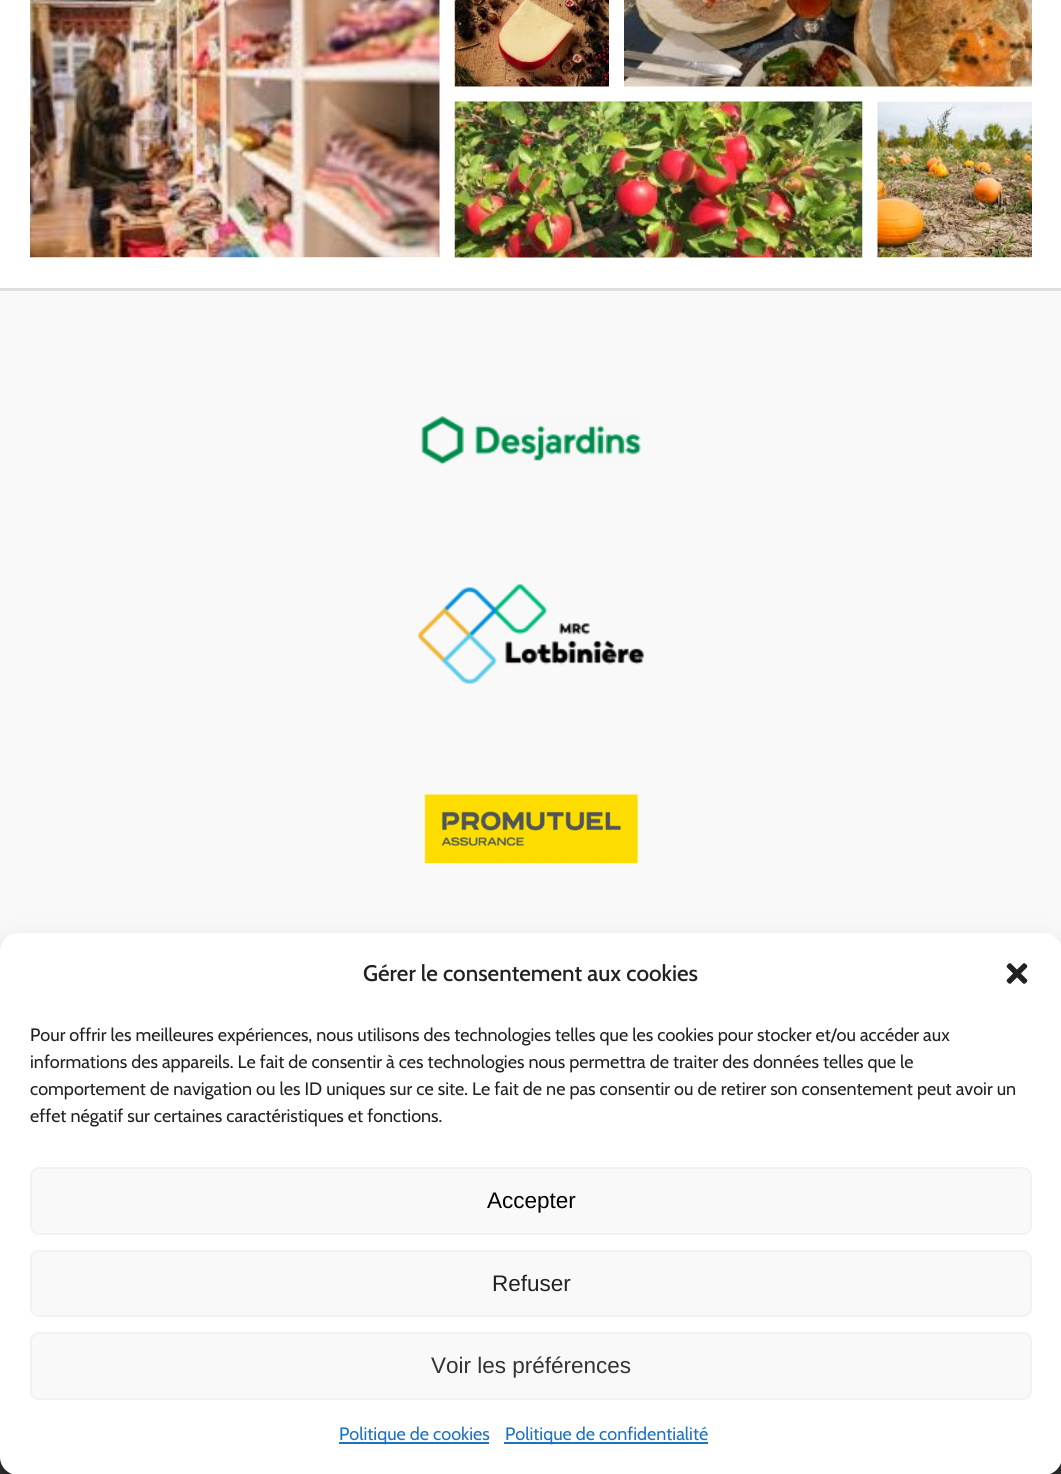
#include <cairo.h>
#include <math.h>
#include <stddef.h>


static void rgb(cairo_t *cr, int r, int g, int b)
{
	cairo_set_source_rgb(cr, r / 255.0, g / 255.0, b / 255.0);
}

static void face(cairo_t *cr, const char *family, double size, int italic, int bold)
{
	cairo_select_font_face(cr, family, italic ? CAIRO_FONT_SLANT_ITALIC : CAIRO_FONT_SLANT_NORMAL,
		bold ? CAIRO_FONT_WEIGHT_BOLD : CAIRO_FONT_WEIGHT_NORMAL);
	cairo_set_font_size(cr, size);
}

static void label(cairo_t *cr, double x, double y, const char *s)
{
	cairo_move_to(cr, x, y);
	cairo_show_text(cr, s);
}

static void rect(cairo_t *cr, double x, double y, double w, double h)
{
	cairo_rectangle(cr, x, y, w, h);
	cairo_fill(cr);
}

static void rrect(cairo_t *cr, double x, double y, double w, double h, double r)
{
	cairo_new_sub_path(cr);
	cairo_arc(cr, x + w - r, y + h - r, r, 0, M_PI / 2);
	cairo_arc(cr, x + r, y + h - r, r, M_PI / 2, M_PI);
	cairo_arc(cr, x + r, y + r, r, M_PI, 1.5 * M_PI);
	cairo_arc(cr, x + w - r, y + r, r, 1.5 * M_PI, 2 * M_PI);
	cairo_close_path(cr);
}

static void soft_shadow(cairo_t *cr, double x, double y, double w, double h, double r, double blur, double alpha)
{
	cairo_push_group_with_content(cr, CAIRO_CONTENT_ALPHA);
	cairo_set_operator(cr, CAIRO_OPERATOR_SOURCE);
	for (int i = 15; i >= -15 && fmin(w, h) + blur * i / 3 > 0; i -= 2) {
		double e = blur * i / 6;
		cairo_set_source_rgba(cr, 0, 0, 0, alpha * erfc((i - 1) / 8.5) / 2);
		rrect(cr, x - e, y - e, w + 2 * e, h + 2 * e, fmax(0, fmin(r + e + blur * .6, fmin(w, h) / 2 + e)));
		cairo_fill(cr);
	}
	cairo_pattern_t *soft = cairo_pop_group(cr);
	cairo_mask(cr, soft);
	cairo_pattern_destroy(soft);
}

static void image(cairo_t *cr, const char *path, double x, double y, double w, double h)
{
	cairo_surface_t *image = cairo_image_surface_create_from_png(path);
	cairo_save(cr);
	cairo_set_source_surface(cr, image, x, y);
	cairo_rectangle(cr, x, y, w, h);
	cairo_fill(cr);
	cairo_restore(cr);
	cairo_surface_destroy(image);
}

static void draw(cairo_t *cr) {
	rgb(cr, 255, 255, 255);
	cairo_paint(cr);
	image(cr, "image0.png", 30, 0, 410, 258);
	image(cr, "image1.png", 454, 0, 155, 87);
	image(cr, "image2.png", 624, 0, 408, 87);
	image(cr, "image3.png", 454, 101, 409, 157);
	image(cr, "image4.png", 877, 101, 155, 157);
	rgb(cr, 249, 249, 249);
	rect(cr, 0, 291, 1061, 660);
	rgb(cr, 224, 224, 224);
	rect(cr, 0, 288, 1061, 3);
	image(cr, "image5.png", 421, 416, 220, 49);
	image(cr, "image6.png", 418, 584, 226, 100);
	image(cr, "image7.png", 424, 794, 215, 70);
	rgb(cr, 51, 51, 51);
	rect(cr, 0, 1457, 1061, 17);
	rgb(cr, 0, 0, 0);
	soft_shadow(cr, 0, 942, 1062, 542, 18, 4.5, 0.23);
	soft_shadow(cr, 0, 948, 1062, 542, 18, 15, 0.19);
	rgb(cr, 255, 255, 255);
	rrect(cr, 0, 933, 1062, 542, 18);
	cairo_fill(cr);
	face(cr, "Cabin Medium", 22.5, 0, 0);
	rgb(cr, 34, 34, 34);
	label(cr, 363, 981, "Gérer le consentement aux cookies");
	image(cr, "image8.png", 1006, 963, 22, 21);
	face(cr, "Cabin", 18, 0, 0);
	label(cr, 30, 1041, "Pour offrir les meilleures expériences, nous utilisons des technologies telles que les cookies pour stocker et/ou accéder aux");
	label(cr, 30, 1068, "informations des appareils. Le fait de consentir à ces technologies nous permettra de traiter des données telles que le");
	label(cr, 30, 1095, "comportement de navigation ou les ID uniques sur ce site. Le fait de ne pas consentir ou de retirer son consentement peut avoir un");
	label(cr, 30, 1122, "effet négatif sur certaines caractéristiques et fonctions.");
	rgb(cr, 249, 249, 249);
	rrect(cr, 31, 1168, 1000, 66, 8);
	cairo_fill_preserve(cr);
	rgb(cr, 242, 242, 242);
	cairo_stroke(cr);
	face(cr, "Liberation Sans", 22.5, 0, 0);
	rgb(cr, 0, 0, 0);
	label(cr, 487, 1208, "Accepter");
	rgb(cr, 249, 249, 249);
	rrect(cr, 31, 1251, 1000, 65, 8);
	cairo_fill_preserve(cr);
	rgb(cr, 242, 242, 242);
	cairo_stroke(cr);
	rgb(cr, 34, 34, 34);
	label(cr, 492, 1291, "Refuser");
	rgb(cr, 249, 249, 249);
	rrect(cr, 31, 1333, 1000, 66, 8);
	cairo_fill_preserve(cr);
	rgb(cr, 242, 242, 242);
	cairo_stroke(cr);
	rgb(cr, 51, 51, 51);
	label(cr, 431, 1373, "Voir les préférences");
	rgb(cr, 30, 115, 190);
	rect(cr, 339, 1442, 150, 2);
	face(cr, "Cabin", 18, 0, 0);
	label(cr, 339, 1440, "Politique de cookies");
	rect(cr, 504, 1442, 204, 2);
	label(cr, 505, 1440, "Politique de confidentialité");
}

int main(void) {
	cairo_surface_t *surface = cairo_image_surface_create(CAIRO_FORMAT_RGB24, 1061, 1474);
	cairo_t *cr = cairo_create(surface);
	cairo_font_options_t *options = cairo_font_options_create();
	cairo_font_options_set_hint_metrics(options, CAIRO_HINT_METRICS_OFF);
	cairo_font_options_set_hint_style(options, CAIRO_HINT_STYLE_NONE);
	cairo_set_font_options(cr, options);
	cairo_set_miter_limit(cr, 4);
	draw(cr);
	cairo_surface_write_to_png(surface, "render.png");
	cairo_font_options_destroy(options);
	cairo_destroy(cr);
	cairo_surface_destroy(surface);
	return 0;
}
